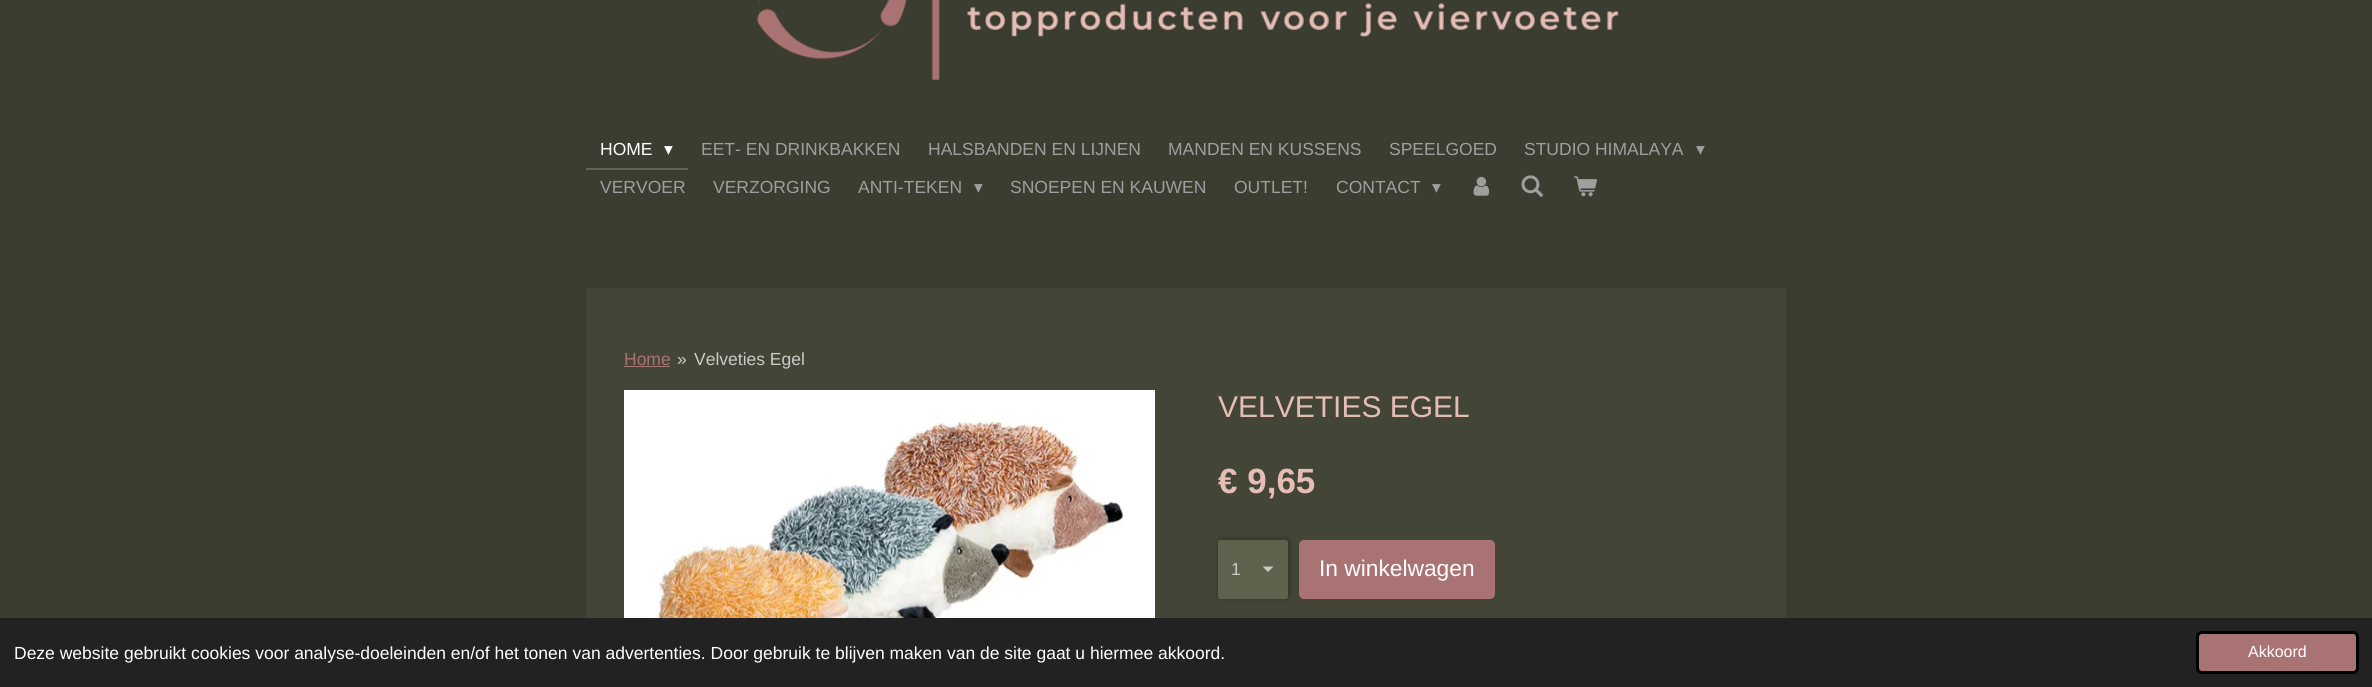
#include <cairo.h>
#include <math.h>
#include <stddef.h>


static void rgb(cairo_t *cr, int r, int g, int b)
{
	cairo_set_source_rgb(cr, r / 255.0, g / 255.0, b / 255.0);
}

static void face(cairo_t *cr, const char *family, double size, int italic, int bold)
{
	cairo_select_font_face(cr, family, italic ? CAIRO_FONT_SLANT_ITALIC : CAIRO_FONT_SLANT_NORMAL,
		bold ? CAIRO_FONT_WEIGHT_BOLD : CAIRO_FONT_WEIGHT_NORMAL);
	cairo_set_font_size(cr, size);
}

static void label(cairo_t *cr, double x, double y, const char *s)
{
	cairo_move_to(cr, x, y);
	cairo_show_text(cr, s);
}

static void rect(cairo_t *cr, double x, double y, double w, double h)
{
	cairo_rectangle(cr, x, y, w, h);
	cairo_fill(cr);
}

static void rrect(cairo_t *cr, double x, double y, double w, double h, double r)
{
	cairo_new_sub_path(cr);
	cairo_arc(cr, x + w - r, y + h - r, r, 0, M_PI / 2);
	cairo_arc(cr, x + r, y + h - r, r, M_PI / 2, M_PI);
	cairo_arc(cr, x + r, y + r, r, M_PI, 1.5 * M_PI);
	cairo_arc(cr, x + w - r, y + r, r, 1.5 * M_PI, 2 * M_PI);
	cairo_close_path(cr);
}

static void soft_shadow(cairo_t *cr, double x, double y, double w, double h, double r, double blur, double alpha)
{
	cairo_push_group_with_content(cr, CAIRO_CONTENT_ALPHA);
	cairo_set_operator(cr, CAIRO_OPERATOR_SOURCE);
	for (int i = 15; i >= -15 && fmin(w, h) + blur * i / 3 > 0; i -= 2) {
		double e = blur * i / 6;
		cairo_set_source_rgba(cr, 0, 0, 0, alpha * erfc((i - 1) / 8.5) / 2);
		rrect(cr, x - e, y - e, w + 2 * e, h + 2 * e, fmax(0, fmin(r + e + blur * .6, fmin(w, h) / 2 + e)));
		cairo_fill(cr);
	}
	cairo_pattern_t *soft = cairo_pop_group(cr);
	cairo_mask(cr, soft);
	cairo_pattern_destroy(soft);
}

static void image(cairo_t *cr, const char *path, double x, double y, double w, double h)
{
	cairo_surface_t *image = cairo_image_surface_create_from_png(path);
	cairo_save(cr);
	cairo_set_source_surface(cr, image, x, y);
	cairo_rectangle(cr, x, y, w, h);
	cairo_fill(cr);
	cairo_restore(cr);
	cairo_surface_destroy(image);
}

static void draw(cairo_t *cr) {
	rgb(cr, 59, 61, 48);
	cairo_paint(cr);
	image(cr, "image0.png", 756, 0, 864, 81);
	rgb(cr, 98, 100, 89);
	cairo_new_path(cr);
	cairo_move_to(cr, 586, 133);
	cairo_line_to(cr, 586, 170);
	cairo_line_to(cr, 688, 170);
	cairo_line_to(cr, 688, 133);
	cairo_line_to(cr, 688, 168);
	cairo_line_to(cr, 586, 168);
	cairo_close_path(cr);
	cairo_fill(cr);
	face(cr, "Liberation Sans", 17.5, 0, 0);
	rgb(cr, 255, 255, 255);
	label(cr, 600, 155, "HOME");
	face(cr, "DejaVu Sans", 17.5, 0, 0);
	label(cr, 664, 155, "▾");
	face(cr, "Liberation Sans", 17.5, 0, 0);
	rgb(cr, 159, 159, 159);
	label(cr, 701, 155, "EET- EN DRINKBAKKEN");
	label(cr, 928, 155, "HALSBANDEN EN LIJNEN");
	label(cr, 1168, 155, "MANDEN EN KUSSENS");
	label(cr, 1389, 155, "SPEELGOED");
	label(cr, 1524, 155, "STUDIO HIMALAYA");
	face(cr, "DejaVu Sans", 17.5, 0, 0);
	label(cr, 1696, 155, "▾");
	face(cr, "Liberation Sans", 17.5, 0, 0);
	label(cr, 600, 193, "VERVOER");
	label(cr, 713, 193, "VERZORGING");
	label(cr, 858, 193, "ANTI-TEKEN");
	face(cr, "DejaVu Sans", 17.5, 0, 0);
	label(cr, 974, 193, "▾");
	face(cr, "Liberation Sans", 17.5, 0, 0);
	label(cr, 1010, 193, "SNOEPEN EN KAUWEN");
	label(cr, 1234, 193, "OUTLET!");
	label(cr, 1336, 193, "CONTACT");
	face(cr, "DejaVu Sans", 17.5, 0, 0);
	label(cr, 1432, 193, "▾");
	image(cr, "image1.png", 1473, 176, 17, 20);
	image(cr, "image2.png", 1521, 175, 23, 23);
	image(cr, "image3.png", 1574, 176, 23, 21);
	rgb(cr, 67, 70, 55);
	rect(cr, 586, 288, 1200, 330);
	face(cr, "Liberation Sans", 17.5, 0, 0);
	rgb(cr, 170, 115, 115);
	label(cr, 624, 365, "Home");
	rect(cr, 624, 366, 46, 1);
	rgb(cr, 202, 202, 202);
	label(cr, 677, 365, "»");
	label(cr, 694, 365, "Velveties Egel");
	image(cr, "image4.png", 624, 390, 531, 228);
	face(cr, "Liberation Sans", 30, 0, 0);
	rgb(cr, 229, 189, 181);
	label(cr, 1218, 417, "VELVETIES EGEL");
	face(cr, "Liberation Sans", 35, 0, 1);
	label(cr, 1218, 493, "€ 9,65");
	rgb(cr, 0, 0, 0);
	soft_shadow(cr, 1219, 539, 70, 59, 2.5, 3, 0.35);
	rgb(cr, 95, 98, 77);
	rrect(cr, 1218, 540, 70, 59, 2.5);
	cairo_fill(cr);
	rgb(cr, 202, 202, 202);
	cairo_new_path(cr);
	cairo_move_to(cr, 1268, 572);
	cairo_line_to(cr, 1262.5, 566.5);
	cairo_line_to(cr, 1273.5, 566.5);
	cairo_close_path(cr);
	cairo_fill(cr);
	face(cr, "Liberation Sans", 17.5, 0, 0);
	label(cr, 1231, 575, "1");
	rgb(cr, 170, 115, 115);
	rrect(cr, 1299, 540, 196, 59, 5);
	cairo_fill(cr);
	face(cr, "Liberation Sans", 22.75, 0, 0);
	rgb(cr, 255, 255, 255);
	label(cr, 1319, 576, "In winkelwagen");
	rgb(cr, 34, 34, 34);
	rect(cr, 0, 618, 2372, 69);
	face(cr, "Liberation Sans", 17.5, 0, 0);
	rgb(cr, 255, 255, 255);
	label(cr, 14, 659, "Deze website gebruikt cookies voor analyse-doeleinden en/of het tonen van advertenties. Door gebruik te blijven maken van de site gaat u hiermee akkoord.");
	rgb(cr, 170, 115, 115);
	rrect(cr, 2197.5, 632.5, 160, 40, 4.5);
	cairo_fill_preserve(cr);
	rgb(cr, 0, 0, 0);
	cairo_set_line_width(cr, 3);
	cairo_stroke(cr);
	face(cr, "Liberation Sans", 16, 0, 0);
	rgb(cr, 255, 255, 255);
	label(cr, 2248, 657, "Akkoord");
}

int main(void) {
	cairo_surface_t *surface = cairo_image_surface_create(CAIRO_FORMAT_RGB24, 2372, 687);
	cairo_t *cr = cairo_create(surface);
	cairo_font_options_t *options = cairo_font_options_create();
	cairo_font_options_set_hint_metrics(options, CAIRO_HINT_METRICS_OFF);
	cairo_font_options_set_hint_style(options, CAIRO_HINT_STYLE_NONE);
	cairo_set_font_options(cr, options);
	cairo_set_miter_limit(cr, 4);
	draw(cr);
	cairo_surface_write_to_png(surface, "render.png");
	cairo_font_options_destroy(options);
	cairo_destroy(cr);
	cairo_surface_destroy(surface);
	return 0;
}
